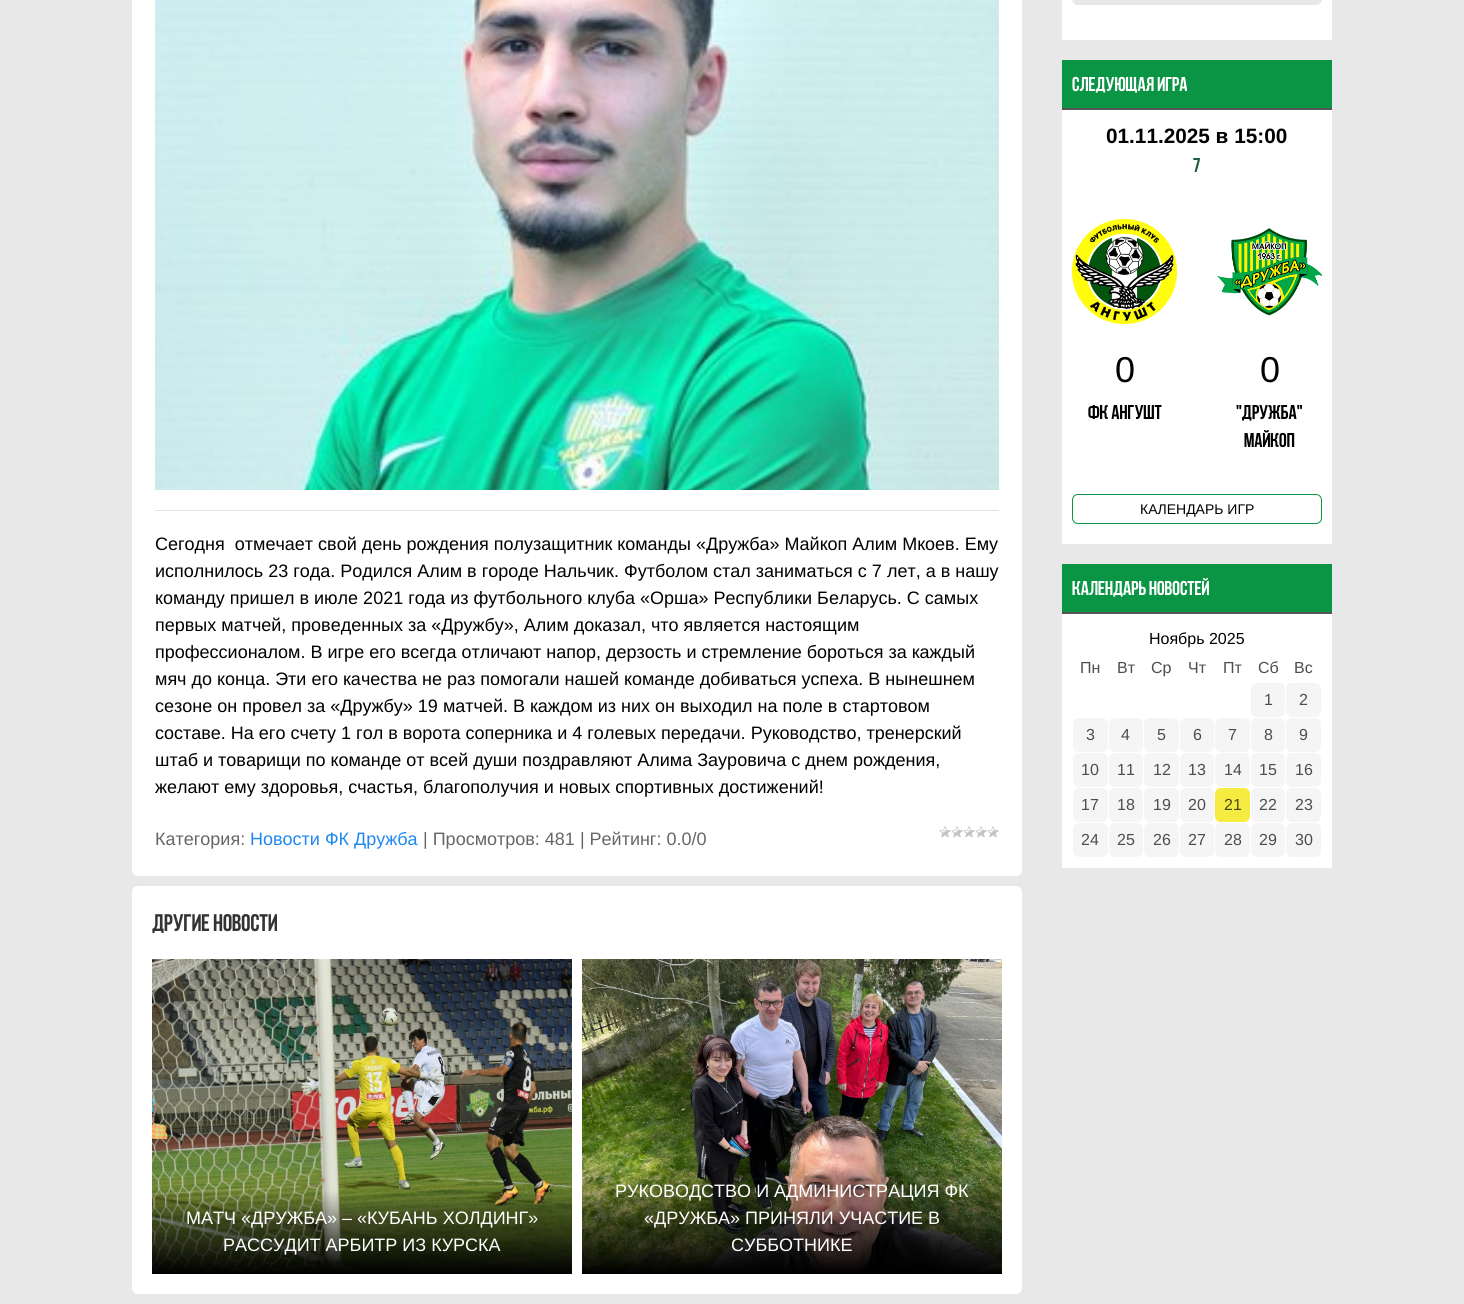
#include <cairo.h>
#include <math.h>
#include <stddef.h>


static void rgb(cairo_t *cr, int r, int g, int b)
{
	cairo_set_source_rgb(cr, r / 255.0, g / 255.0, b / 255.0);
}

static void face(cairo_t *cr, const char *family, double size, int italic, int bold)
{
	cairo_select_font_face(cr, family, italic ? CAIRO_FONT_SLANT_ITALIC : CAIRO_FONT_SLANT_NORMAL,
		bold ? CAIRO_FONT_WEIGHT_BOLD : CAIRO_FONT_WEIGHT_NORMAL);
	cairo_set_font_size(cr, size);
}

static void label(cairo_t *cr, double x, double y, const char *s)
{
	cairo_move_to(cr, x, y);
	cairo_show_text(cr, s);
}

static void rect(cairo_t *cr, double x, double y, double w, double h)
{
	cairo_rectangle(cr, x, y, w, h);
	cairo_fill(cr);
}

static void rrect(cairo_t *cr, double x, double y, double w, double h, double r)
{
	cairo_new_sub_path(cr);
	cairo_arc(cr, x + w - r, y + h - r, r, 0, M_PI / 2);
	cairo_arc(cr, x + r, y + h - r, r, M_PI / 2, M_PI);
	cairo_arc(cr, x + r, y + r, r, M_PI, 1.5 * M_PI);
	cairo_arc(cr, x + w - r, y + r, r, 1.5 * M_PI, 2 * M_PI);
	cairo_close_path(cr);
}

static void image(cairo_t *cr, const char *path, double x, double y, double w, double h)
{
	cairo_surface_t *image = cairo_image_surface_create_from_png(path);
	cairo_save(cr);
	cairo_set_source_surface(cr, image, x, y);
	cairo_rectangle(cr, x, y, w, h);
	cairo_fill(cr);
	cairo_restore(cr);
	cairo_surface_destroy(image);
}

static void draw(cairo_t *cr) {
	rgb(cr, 232, 232, 232);
	cairo_paint(cr);
	rgb(cr, 255, 255, 255);
	rrect(cr, 132, -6, 890, 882, 6);
	cairo_fill(cr);
	image(cr, "image0.png", 155, 0, 844, 490);
	rgb(cr, 229, 229, 229);
	rect(cr, 155, 510, 844, 1);
	face(cr, "Liberation Sans", 18, 0, 0);
	rgb(cr, 0, 0, 0);
	label(cr, 155, 550, "Сегодня  отмечает свой день рождения полузащитник команды «Дружба» Майкоп Алим Мкоев. Ему");
	label(cr, 155, 577, "исполнилось 23 года. Родился Алим в городе Нальчик. Футболом стал заниматься с 7 лет, а в нашу");
	label(cr, 155, 604, "команду пришел в июле 2021 года из футбольного клуба «Орша» Республики Беларусь. С самых");
	label(cr, 155, 631, "первых матчей, проведенных за «Дружбу», Алим доказал, что является настоящим");
	label(cr, 155, 658, "профессионалом. В игре его всегда отличают напор, дерзость и стремление бороться за каждый");
	label(cr, 155, 685, "мяч до конца. Эти его качества не раз помогали нашей команде добиваться успеха. В нынешнем");
	label(cr, 155, 712, "сезоне он провел за «Дружбу» 19 матчей. В каждом из них он выходил на поле в стартовом");
	label(cr, 155, 739, "составе. На его счету 1 гол в ворота соперника и 4 голевых передачи. Руководство, тренерский");
	label(cr, 155, 766, "штаб и товарищи по команде от всей души поздравляют Алима Зауровича с днем рождения,");
	label(cr, 155, 793, "желают ему здоровья, счастья, благополучия и новых спортивных достижений!");
	rgb(cr, 102, 102, 102);
	label(cr, 155, 845, "Категория:");
	rgb(cr, 30, 135, 240);
	label(cr, 250, 845, "Новости ФК Дружба");
	rgb(cr, 102, 102, 102);
	label(cr, 423, 845, "| Просмотров: 481 | Рейтинг: 0.0/0");
	image(cr, "image1.png", 939, 826, 60, 12);
	rgb(cr, 255, 255, 255);
	rrect(cr, 132, 886, 890, 408, 6);
	cairo_fill(cr);
	face(cr, "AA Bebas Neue", 24, 0, 0);
	rgb(cr, 51, 51, 51);
	label(cr, 152, 931, "Другие новости");
	image(cr, "image2.png", 152, 959, 420, 315);
	face(cr, "Liberation Sans", 18, 0, 0);
	rgb(cr, 255, 255, 255);
	label(cr, 186, 1224, "МАТЧ «ДРУЖБА» – «КУБАНЬ ХОЛДИНГ»");
	label(cr, 223, 1251, "РАССУДИТ АРБИТР ИЗ КУРСКА");
	image(cr, "image3.png", 582, 959, 420, 315);
	label(cr, 615, 1197, "РУКОВОДСТВО И АДМИНИСТРАЦИЯ ФК");
	label(cr, 644, 1224, "«ДРУЖБА» ПРИНЯЛИ УЧАСТИЕ В");
	label(cr, 731, 1251, "СУББОТНИКЕ");
	rect(cr, 1062, 0, 270, 40);
	rgb(cr, 232, 232, 232);
	rrect(cr, 1072, -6, 250, 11, 6);
	cairo_fill(cr);
	rgb(cr, 10, 149, 68);
	rect(cr, 1062, 60, 270, 48);
	rgb(cr, 85, 85, 85);
	rect(cr, 1062, 108, 270, 2);
	face(cr, "AA Bebas Neue", 20, 0, 0);
	rgb(cr, 255, 255, 255);
	label(cr, 1072, 91, "Следующая игра");
	rect(cr, 1062, 110, 270, 434);
	face(cr, "Liberation Sans", 20.75, 0, 1);
	rgb(cr, 0, 0, 0);
	label(cr, 1106, 143, "01.11.2025 в 15:00");
	face(cr, "AA Bebas Neue", 20, 0, 0);
	rgb(cr, 29, 96, 61);
	label(cr, 1193, 172, "7");
	image(cr, "image4.png", 1072, 219, 105, 105);
	face(cr, "Liberation Sans", 36, 0, 0);
	rgb(cr, 0, 0, 0);
	label(cr, 1115, 382, "0");
	face(cr, "AA Bebas Neue", 20, 0, 0);
	label(cr, 1088, 419, "ФК Ангушт");
	image(cr, "image5.png", 1217, 228, 105, 88);
	face(cr, "Liberation Sans", 36, 0, 0);
	label(cr, 1260, 382, "0");
	face(cr, "AA Bebas Neue", 20, 0, 0);
	label(cr, 1236, 419, "\"Дружба\"");
	label(cr, 1244, 447, "Майкоп");
	rrect(cr, 1072.5, 494.5, 249, 29, 5.5);
	rgb(cr, 10, 149, 68);
	cairo_set_line_width(cr, 1);
	cairo_stroke(cr);
	face(cr, "Liberation Sans", 14, 0, 0);
	rgb(cr, 0, 0, 0);
	label(cr, 1140, 514, "КАЛЕНДАРЬ ИГР");
	rgb(cr, 10, 149, 68);
	rect(cr, 1062, 564, 270, 48);
	rgb(cr, 85, 85, 85);
	rect(cr, 1062, 612, 270, 2);
	face(cr, "AA Bebas Neue", 20, 0, 0);
	rgb(cr, 255, 255, 255);
	label(cr, 1072, 595, "Календарь новостей");
	rect(cr, 1062, 614, 270, 254);
	face(cr, "Liberation Sans", 16, 0, 0);
	rgb(cr, 0, 0, 0);
	label(cr, 1149, 644, "Ноябрь 2025");
	rgb(cr, 77, 77, 77);
	label(cr, 1080, 673, "Пн");
	label(cr, 1117, 673, "Вт");
	label(cr, 1151, 673, "Ср");
	label(cr, 1188, 673, "Чт");
	label(cr, 1223, 673, "Пт");
	label(cr, 1258, 673, "Сб");
	label(cr, 1294, 673, "Вс");
	rgb(cr, 245, 245, 245);
	rrect(cr, 1251, 683, 34, 34, 6);
	cairo_fill(cr);
	rgb(cr, 77, 77, 77);
	label(cr, 1264, 705, "1");
	rgb(cr, 245, 245, 245);
	rrect(cr, 1286, 683, 35, 34, 6);
	cairo_fill(cr);
	rgb(cr, 77, 77, 77);
	label(cr, 1299, 705, "2");
	rgb(cr, 245, 245, 245);
	rrect(cr, 1073, 718, 35, 34, 6);
	cairo_fill(cr);
	rgb(cr, 77, 77, 77);
	label(cr, 1086, 740, "3");
	rgb(cr, 245, 245, 245);
	rrect(cr, 1109, 718, 34, 34, 6);
	cairo_fill(cr);
	rgb(cr, 77, 77, 77);
	label(cr, 1121, 740, "4");
	rgb(cr, 245, 245, 245);
	rrect(cr, 1144, 718, 35, 34, 6);
	cairo_fill(cr);
	rgb(cr, 77, 77, 77);
	label(cr, 1157, 740, "5");
	rgb(cr, 245, 245, 245);
	rrect(cr, 1180, 718, 34, 34, 6);
	cairo_fill(cr);
	rgb(cr, 77, 77, 77);
	label(cr, 1193, 740, "6");
	rgb(cr, 245, 245, 245);
	rrect(cr, 1215, 718, 35, 34, 6);
	cairo_fill(cr);
	rgb(cr, 77, 77, 77);
	label(cr, 1228, 740, "7");
	rgb(cr, 245, 245, 245);
	rrect(cr, 1251, 718, 34, 34, 6);
	cairo_fill(cr);
	rgb(cr, 77, 77, 77);
	label(cr, 1264, 740, "8");
	rgb(cr, 245, 245, 245);
	rrect(cr, 1286, 718, 35, 34, 6);
	cairo_fill(cr);
	rgb(cr, 77, 77, 77);
	label(cr, 1299, 740, "9");
	rgb(cr, 245, 245, 245);
	rrect(cr, 1073, 753, 35, 34, 6);
	cairo_fill(cr);
	rgb(cr, 77, 77, 77);
	label(cr, 1081, 775, "10");
	rgb(cr, 245, 245, 245);
	rrect(cr, 1109, 753, 34, 34, 6);
	cairo_fill(cr);
	rgb(cr, 77, 77, 77);
	label(cr, 1117, 775, "11");
	rgb(cr, 245, 245, 245);
	rrect(cr, 1144, 753, 35, 34, 6);
	cairo_fill(cr);
	rgb(cr, 77, 77, 77);
	label(cr, 1153, 775, "12");
	rgb(cr, 245, 245, 245);
	rrect(cr, 1180, 753, 34, 34, 6);
	cairo_fill(cr);
	rgb(cr, 77, 77, 77);
	label(cr, 1188, 775, "13");
	rgb(cr, 245, 245, 245);
	rrect(cr, 1215, 753, 35, 34, 6);
	cairo_fill(cr);
	rgb(cr, 77, 77, 77);
	label(cr, 1224, 775, "14");
	rgb(cr, 245, 245, 245);
	rrect(cr, 1251, 753, 34, 34, 6);
	cairo_fill(cr);
	rgb(cr, 77, 77, 77);
	label(cr, 1259, 775, "15");
	rgb(cr, 245, 245, 245);
	rrect(cr, 1286, 753, 35, 34, 6);
	cairo_fill(cr);
	rgb(cr, 77, 77, 77);
	label(cr, 1295, 775, "16");
	rgb(cr, 245, 245, 245);
	rrect(cr, 1073, 788, 35, 34, 6);
	cairo_fill(cr);
	rgb(cr, 77, 77, 77);
	label(cr, 1081, 810, "17");
	rgb(cr, 245, 245, 245);
	rrect(cr, 1109, 788, 34, 34, 6);
	cairo_fill(cr);
	rgb(cr, 77, 77, 77);
	label(cr, 1117, 810, "18");
	rgb(cr, 245, 245, 245);
	rrect(cr, 1144, 788, 35, 34, 6);
	cairo_fill(cr);
	rgb(cr, 77, 77, 77);
	label(cr, 1153, 810, "19");
	rgb(cr, 245, 245, 245);
	rrect(cr, 1180, 788, 34, 34, 6);
	cairo_fill(cr);
	rgb(cr, 77, 77, 77);
	label(cr, 1188, 810, "20");
	rgb(cr, 246, 236, 65);
	rrect(cr, 1215, 788, 35, 34, 6);
	cairo_fill(cr);
	rgb(cr, 74, 71, 20);
	label(cr, 1224, 810, "21");
	rgb(cr, 245, 245, 245);
	rrect(cr, 1251, 788, 34, 34, 6);
	cairo_fill(cr);
	rgb(cr, 77, 77, 77);
	label(cr, 1259, 810, "22");
	rgb(cr, 245, 245, 245);
	rrect(cr, 1286, 788, 35, 34, 6);
	cairo_fill(cr);
	rgb(cr, 77, 77, 77);
	label(cr, 1295, 810, "23");
	rgb(cr, 245, 245, 245);
	rrect(cr, 1073, 823, 35, 34, 6);
	cairo_fill(cr);
	rgb(cr, 77, 77, 77);
	label(cr, 1081, 845, "24");
	rgb(cr, 245, 245, 245);
	rrect(cr, 1109, 823, 34, 34, 6);
	cairo_fill(cr);
	rgb(cr, 77, 77, 77);
	label(cr, 1117, 845, "25");
	rgb(cr, 245, 245, 245);
	rrect(cr, 1144, 823, 35, 34, 6);
	cairo_fill(cr);
	rgb(cr, 77, 77, 77);
	label(cr, 1153, 845, "26");
	rgb(cr, 245, 245, 245);
	rrect(cr, 1180, 823, 34, 34, 6);
	cairo_fill(cr);
	rgb(cr, 77, 77, 77);
	label(cr, 1188, 845, "27");
	rgb(cr, 245, 245, 245);
	rrect(cr, 1215, 823, 35, 34, 6);
	cairo_fill(cr);
	rgb(cr, 77, 77, 77);
	label(cr, 1224, 845, "28");
	rgb(cr, 245, 245, 245);
	rrect(cr, 1251, 823, 34, 34, 6);
	cairo_fill(cr);
	rgb(cr, 77, 77, 77);
	label(cr, 1259, 845, "29");
	rgb(cr, 245, 245, 245);
	rrect(cr, 1286, 823, 35, 34, 6);
	cairo_fill(cr);
	rgb(cr, 77, 77, 77);
	label(cr, 1295, 845, "30");
}

int main(void) {
	cairo_surface_t *surface = cairo_image_surface_create(CAIRO_FORMAT_RGB24, 1464, 1304);
	cairo_t *cr = cairo_create(surface);
	cairo_font_options_t *options = cairo_font_options_create();
	cairo_font_options_set_hint_metrics(options, CAIRO_HINT_METRICS_OFF);
	cairo_font_options_set_hint_style(options, CAIRO_HINT_STYLE_NONE);
	cairo_set_font_options(cr, options);
	cairo_set_miter_limit(cr, 4);
	draw(cr);
	cairo_surface_write_to_png(surface, "render.png");
	cairo_font_options_destroy(options);
	cairo_destroy(cr);
	cairo_surface_destroy(surface);
	return 0;
}
